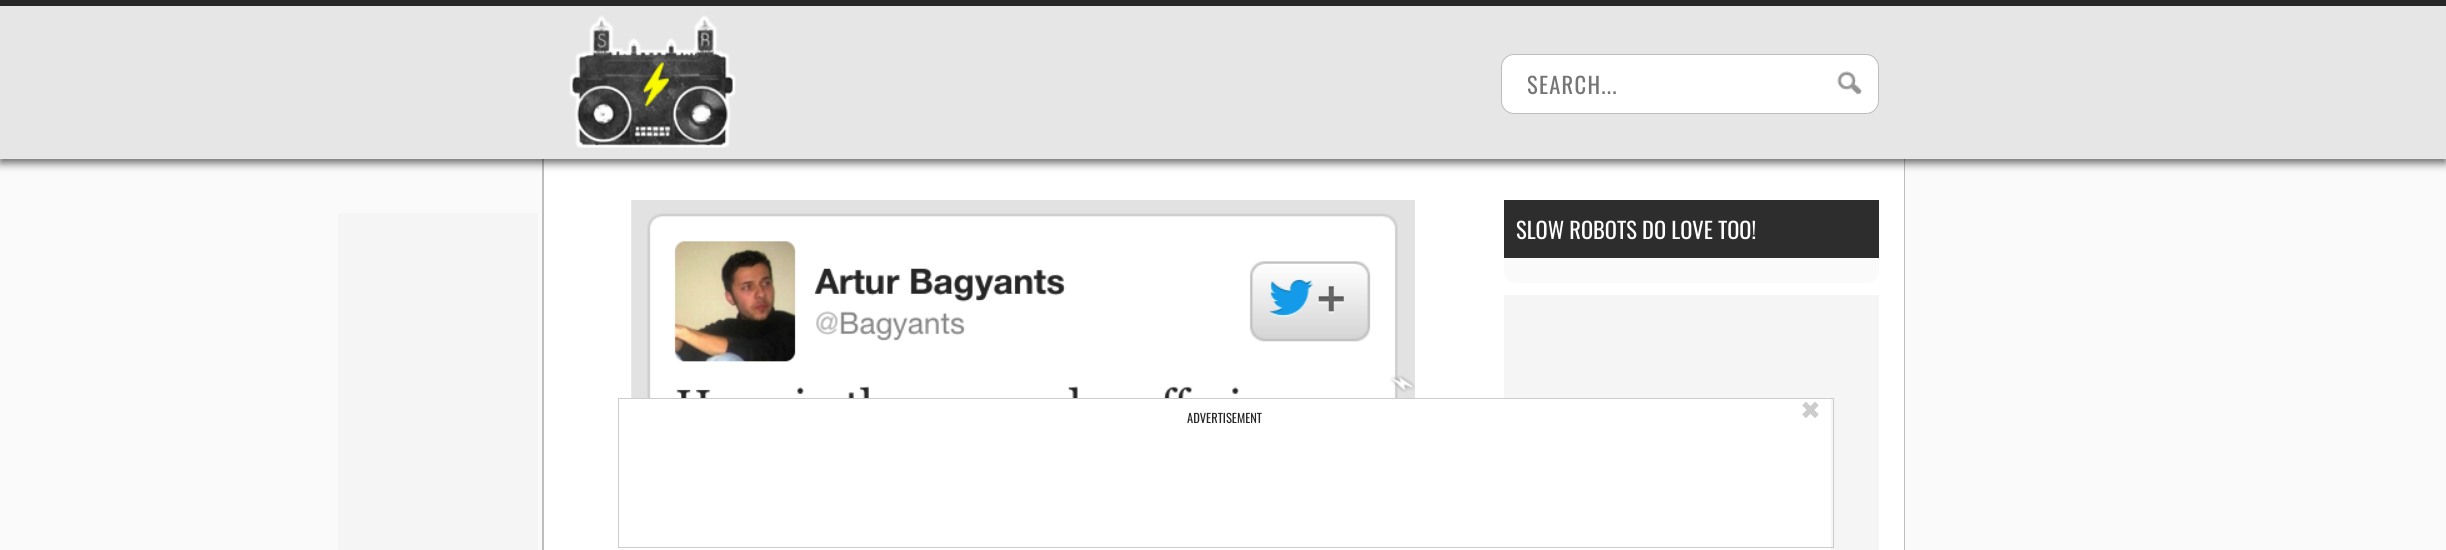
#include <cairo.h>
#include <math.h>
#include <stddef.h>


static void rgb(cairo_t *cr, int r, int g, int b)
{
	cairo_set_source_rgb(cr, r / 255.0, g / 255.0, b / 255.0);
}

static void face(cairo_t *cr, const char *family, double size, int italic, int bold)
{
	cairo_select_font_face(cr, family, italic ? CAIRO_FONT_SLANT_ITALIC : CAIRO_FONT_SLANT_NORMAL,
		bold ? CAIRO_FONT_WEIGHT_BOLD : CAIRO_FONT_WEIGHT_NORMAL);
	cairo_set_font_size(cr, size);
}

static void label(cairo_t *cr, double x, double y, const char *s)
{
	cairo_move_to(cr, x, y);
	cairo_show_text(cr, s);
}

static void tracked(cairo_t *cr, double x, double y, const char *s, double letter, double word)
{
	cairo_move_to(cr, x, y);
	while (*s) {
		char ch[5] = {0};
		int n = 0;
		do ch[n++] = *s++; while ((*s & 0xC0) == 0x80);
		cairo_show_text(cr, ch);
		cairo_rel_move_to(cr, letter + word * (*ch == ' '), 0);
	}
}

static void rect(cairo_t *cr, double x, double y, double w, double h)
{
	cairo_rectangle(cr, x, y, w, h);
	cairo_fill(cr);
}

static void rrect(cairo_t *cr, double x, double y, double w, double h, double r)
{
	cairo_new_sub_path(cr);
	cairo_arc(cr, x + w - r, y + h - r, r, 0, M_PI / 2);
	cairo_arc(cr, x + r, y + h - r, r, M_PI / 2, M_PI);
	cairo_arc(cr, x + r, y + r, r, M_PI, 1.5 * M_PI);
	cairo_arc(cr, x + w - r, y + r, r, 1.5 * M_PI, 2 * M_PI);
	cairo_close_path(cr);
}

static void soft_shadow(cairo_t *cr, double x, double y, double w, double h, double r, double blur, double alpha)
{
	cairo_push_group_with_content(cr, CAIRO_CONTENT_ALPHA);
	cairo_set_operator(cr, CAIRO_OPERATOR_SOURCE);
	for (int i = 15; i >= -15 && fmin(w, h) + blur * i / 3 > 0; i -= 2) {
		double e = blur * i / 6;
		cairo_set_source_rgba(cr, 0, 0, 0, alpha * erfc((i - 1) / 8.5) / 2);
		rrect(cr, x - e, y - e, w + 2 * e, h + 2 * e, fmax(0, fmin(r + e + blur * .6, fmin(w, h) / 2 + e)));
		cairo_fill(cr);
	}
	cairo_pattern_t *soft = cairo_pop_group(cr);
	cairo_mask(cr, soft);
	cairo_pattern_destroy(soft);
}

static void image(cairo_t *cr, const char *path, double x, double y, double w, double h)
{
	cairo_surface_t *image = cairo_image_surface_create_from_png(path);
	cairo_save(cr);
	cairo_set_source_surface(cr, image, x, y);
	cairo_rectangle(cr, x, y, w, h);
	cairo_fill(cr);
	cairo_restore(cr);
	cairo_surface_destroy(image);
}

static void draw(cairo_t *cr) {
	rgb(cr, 250, 250, 250);
	cairo_paint(cr);
	rgb(cr, 255, 255, 255);
	rect(cr, 544, 159, 1360, 391);
	rgb(cr, 189, 189, 189);
	cairo_set_fill_rule(cr, CAIRO_FILL_RULE_EVEN_ODD);
	cairo_new_path(cr);
	cairo_move_to(cr, 542, 0);
	cairo_line_to(cr, 1905, 0);
	cairo_line_to(cr, 1905, 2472);
	cairo_curve_to(cr, 1905, 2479, 1899, 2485, 1892, 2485);
	cairo_line_to(cr, 555, 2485);
	cairo_curve_to(cr, 548, 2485, 542, 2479, 542, 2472);
	cairo_close_path(cr);
	cairo_move_to(cr, 544, 0);
	cairo_line_to(cr, 1904, 0);
	cairo_line_to(cr, 1904, 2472);
	cairo_curve_to(cr, 1904, 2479, 1899, 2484, 1892, 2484);
	cairo_line_to(cr, 555, 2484);
	cairo_curve_to(cr, 549, 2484, 544, 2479, 544, 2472);
	cairo_close_path(cr);
	cairo_fill(cr);
	rgb(cr, 0, 0, 0);
	soft_shadow(cr, 0, 4, 2446, 159, 0, 4.5, 0.6);
	rgb(cr, 230, 230, 230);
	rect(cr, 0, 6, 2446, 153);
	rgb(cr, 39, 39, 39);
	rect(cr, 0, 0, 2446, 6);
	image(cr, "image0.png", 569, 15, 167, 133);
	rgb(cr, 255, 255, 255);
	rrect(cr, 1501.5, 54.5, 377, 59, 12.5);
	cairo_fill_preserve(cr);
	rgb(cr, 189, 189, 189);
	cairo_set_line_width(cr, 1);
	cairo_stroke(cr);
	cairo_save(cr);
	cairo_set_fill_rule(cr, CAIRO_FILL_RULE_WINDING);
	cairo_rectangle(cr, 1528, 68, 300, 32);
	cairo_clip(cr);
	face(cr, "Oswald", 22.5, 0, 0);
	rgb(cr, 117, 117, 117);
	tracked(cr, 1527, 94, "SEARCH...", 1.25, 0);
	cairo_restore(cr);
	image(cr, "image1.png", 1837, 71, 25, 24);
	rgb(cr, 245, 245, 245);
	rect(cr, 338, 213, 200, 337);
	image(cr, "image2.png", 631, 200, 784, 198);
	rgb(cr, 45, 45, 45);
	rect(cr, 1504, 200, 375, 58);
	face(cr, "Oswald", 22.5, 0, 0);
	rgb(cr, 255, 255, 255);
	label(cr, 1516, 239, "SLOW ROBOTS DO LOVE TOO!");
	rgb(cr, 250, 250, 250);
	cairo_new_path(cr);
	cairo_move_to(cr, 1504, 258);
	cairo_line_to(cr, 1879, 258);
	cairo_line_to(cr, 1879, 270.5);
	cairo_curve_to(cr, 1879, 277.5, 1873.5, 283, 1866.5, 283);
	cairo_line_to(cr, 1516.5, 283);
	cairo_curve_to(cr, 1509.5, 283, 1504, 277.5, 1504, 270.5);
	cairo_close_path(cr);
	cairo_fill(cr);
	rgb(cr, 245, 245, 245);
	rect(cr, 1504, 295, 375, 255);
	rgb(cr, 255, 255, 255);
	rect(cr, 1504, 399, 327, 151);
	cairo_rectangle(cr, 618.5, 398.5, 1215, 149);
	rgb(cr, 204, 204, 204);
	cairo_stroke(cr);
	face(cr, "Oswald", 12.5, 0, 0);
	rgb(cr, 39, 39, 39);
	label(cr, 1187, 423, "ADVERTISEMENT");
	face(cr, "DejaVu Sans", 25, 0, 0);
	rgb(cr, 204, 204, 204);
	label(cr, 1800, 419, "✖");
}

int main(void) {
	cairo_surface_t *surface = cairo_image_surface_create(CAIRO_FORMAT_RGB24, 2446, 550);
	cairo_t *cr = cairo_create(surface);
	cairo_font_options_t *options = cairo_font_options_create();
	cairo_font_options_set_hint_metrics(options, CAIRO_HINT_METRICS_OFF);
	cairo_font_options_set_hint_style(options, CAIRO_HINT_STYLE_NONE);
	cairo_set_font_options(cr, options);
	cairo_set_miter_limit(cr, 4);
	draw(cr);
	cairo_surface_write_to_png(surface, "render.png");
	cairo_font_options_destroy(options);
	cairo_destroy(cr);
	cairo_surface_destroy(surface);
	return 0;
}
